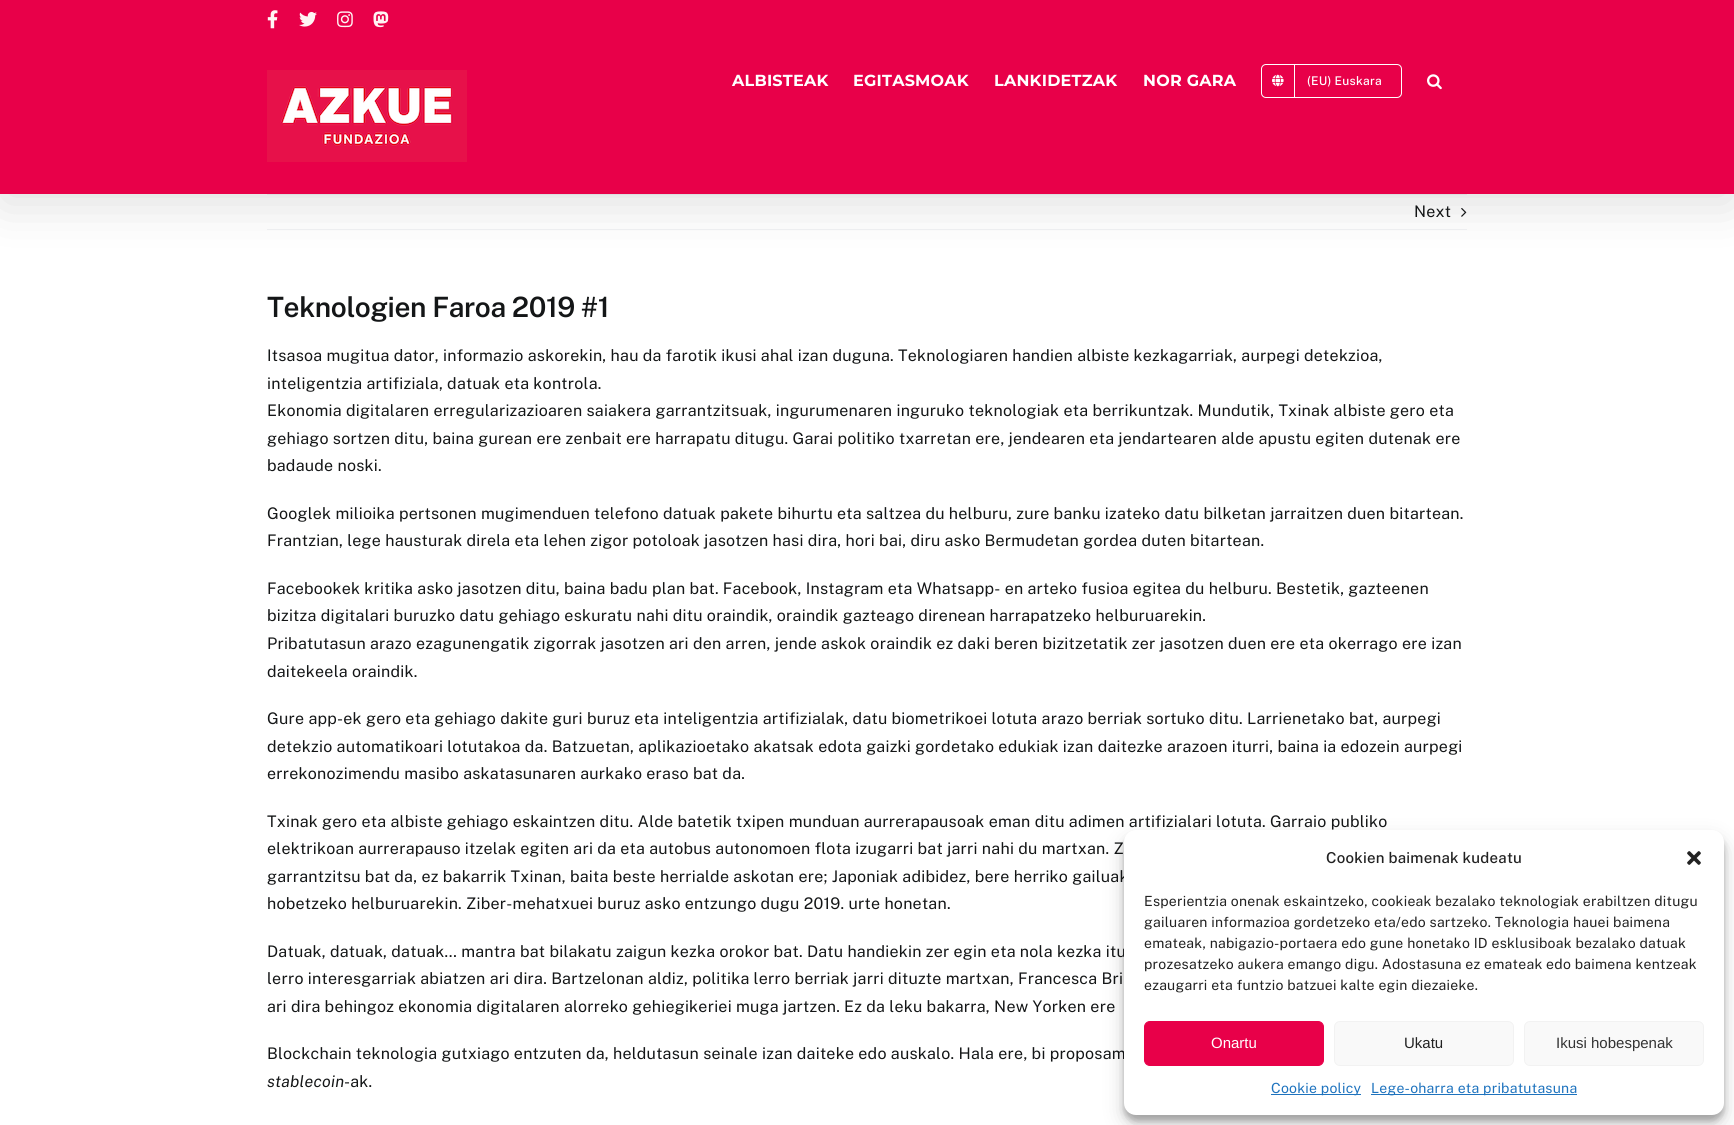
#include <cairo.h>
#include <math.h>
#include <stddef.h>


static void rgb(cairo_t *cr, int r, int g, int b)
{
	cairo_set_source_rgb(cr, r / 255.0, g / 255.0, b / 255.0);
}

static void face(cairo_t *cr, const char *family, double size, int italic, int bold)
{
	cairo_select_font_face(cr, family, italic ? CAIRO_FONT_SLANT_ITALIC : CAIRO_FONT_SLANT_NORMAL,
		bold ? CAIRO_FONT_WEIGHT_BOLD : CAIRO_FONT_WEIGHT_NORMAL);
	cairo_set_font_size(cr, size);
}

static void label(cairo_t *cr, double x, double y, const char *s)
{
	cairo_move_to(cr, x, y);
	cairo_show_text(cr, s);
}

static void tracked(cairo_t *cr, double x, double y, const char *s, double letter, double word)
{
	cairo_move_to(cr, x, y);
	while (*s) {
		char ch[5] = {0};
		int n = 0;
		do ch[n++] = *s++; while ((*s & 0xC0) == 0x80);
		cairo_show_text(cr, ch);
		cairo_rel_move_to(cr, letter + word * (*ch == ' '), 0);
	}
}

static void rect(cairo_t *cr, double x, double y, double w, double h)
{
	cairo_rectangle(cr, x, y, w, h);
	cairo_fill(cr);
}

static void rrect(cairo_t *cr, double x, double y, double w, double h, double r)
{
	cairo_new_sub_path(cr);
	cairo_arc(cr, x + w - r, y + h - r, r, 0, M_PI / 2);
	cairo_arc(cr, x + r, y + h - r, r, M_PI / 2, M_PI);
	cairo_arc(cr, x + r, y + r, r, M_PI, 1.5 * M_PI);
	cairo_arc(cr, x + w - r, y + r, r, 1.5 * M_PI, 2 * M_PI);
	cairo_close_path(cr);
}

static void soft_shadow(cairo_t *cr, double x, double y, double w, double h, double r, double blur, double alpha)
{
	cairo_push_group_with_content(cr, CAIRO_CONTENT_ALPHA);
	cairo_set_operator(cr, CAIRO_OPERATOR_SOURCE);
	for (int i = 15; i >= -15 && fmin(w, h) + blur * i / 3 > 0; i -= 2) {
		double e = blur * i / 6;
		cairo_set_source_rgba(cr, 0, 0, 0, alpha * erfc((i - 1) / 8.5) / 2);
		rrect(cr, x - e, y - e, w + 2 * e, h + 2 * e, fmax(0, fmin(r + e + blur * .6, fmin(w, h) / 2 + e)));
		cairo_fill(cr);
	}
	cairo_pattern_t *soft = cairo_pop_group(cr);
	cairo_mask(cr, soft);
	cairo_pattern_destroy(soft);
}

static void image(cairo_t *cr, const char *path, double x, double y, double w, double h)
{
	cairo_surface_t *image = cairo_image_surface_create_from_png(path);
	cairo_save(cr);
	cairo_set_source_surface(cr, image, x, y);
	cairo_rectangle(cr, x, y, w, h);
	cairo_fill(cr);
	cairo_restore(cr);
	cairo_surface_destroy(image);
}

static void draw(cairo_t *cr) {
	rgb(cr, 255, 255, 255);
	cairo_paint(cr);
	rgb(cr, 242, 243, 245);
	rect(cr, 267, 194, 1200, 1);
	rect(cr, 267, 229, 1200, 1);
	image(cr, "image7.png", 1461, 208, 6, 9);
	rgb(cr, 0, 0, 0);
	soft_shadow(cr, 2, 12, 1730, 190, 0, 25, 0.14);
	rgb(cr, 232, 0, 73);
	rect(cr, 0, 0, 1734, 194);
	image(cr, "image0.png", 267, 10, 11, 19);
	image(cr, "image1.png", 299, 11, 18, 16);
	image(cr, "image2.png", 337, 11, 16, 17);
	image(cr, "image3.png", 373, 11, 16, 17);
	image(cr, "image4.png", 267, 70, 200, 92);
	face(cr, "Montserrat Thin", 16, 0, 0);
	rgb(cr, 255, 255, 255);
	tracked(cr, 732, 86, "ALBISTEAK", 0.24, 0);
	tracked(cr, 853, 86, "EGITASMOAK", 0.24, 0);
	tracked(cr, 994, 86, "LANKIDETZAK", 0.24, 0);
	tracked(cr, 1143, 86, "NOR GARA", 0.24, 0);
	rrect(cr, 1261.5, 64.5, 140, 33, 4.5);
	cairo_set_line_width(cr, 1);
	cairo_stroke(cr);
	rect(cr, 1294, 65, 1, 32);
	image(cr, "image5.png", 1272, 74, 12, 13);
	face(cr, "Public Sans Medium", 12, 0, 0);
	tracked(cr, 1307, 85, "(EU) Euskara", 0.25, 0);
	image(cr, "image6.png", 1427, 74, 15, 16);
	face(cr, "Public Sans", 16, 0, 0);
	rgb(cr, 20, 22, 23);
	tracked(cr, 1414, 217, "Next", 0.24, 0);
	face(cr, "Public Sans SemiBold", 28, 0, 0);
	tracked(cr, 267, 317, "Teknologien Faroa 2019 #1", -0.4, 0);
	face(cr, "Public Sans", 16, 0, 0);
	tracked(cr, 267, 361, "Itsasoa mugitua dator, informazio askorekin, hau da farotik ikusi ahal izan duguna. Teknologiaren handien albiste kezkagarriak, aurpegi detekzioa,", 0.24, 0);
	tracked(cr, 267, 389, "inteligentzia artifiziala, datuak eta kontrola.", 0.24, 0);
	tracked(cr, 267, 416, "Ekonomia digitalaren erregularizazioaren saiakera garrantzitsuak, ingurumenaren inguruko teknologiak eta berrikuntzak. Mundutik, Txinak albiste gero eta", 0.24, 0);
	tracked(cr, 267, 444, "gehiago sortzen ditu, baina gurean ere zenbait ere harrapatu ditugu. Garai politiko txarretan ere, jendearen eta jendartearen alde apustu egiten dutenak ere", 0.24, 0);
	tracked(cr, 267, 471, "badaude noski.", 0.24, 0);
	tracked(cr, 267, 519, "Googlek milioika pertsonen mugimenduen telefono datuak pakete bihurtu eta saltzea du helburu, zure banku izateko datu bilketan jarraitzen duen bitartean.", 0.24, 0);
	tracked(cr, 267, 546, "Frantzian, lege hausturak direla eta lehen zigor potoloak jasotzen hasi dira, hori bai, diru asko Bermudetan gordea duten bitartean.", 0.24, 0);
	tracked(cr, 267, 594, "Facebookek kritika asko jasotzen ditu, baina badu plan bat. Facebook, Instagram eta Whatsapp- en arteko fusioa egitea du helburu. Bestetik, gazteenen", 0.24, 0);
	tracked(cr, 267, 621, "bizitza digitalari buruzko datu gehiago eskuratu nahi ditu oraindik, oraindik gazteago direnean harrapatzeko helburuarekin.", 0.24, 0);
	tracked(cr, 267, 649, "Pribatutasun arazo ezagunengatik zigorrak jasotzen ari den arren, jende askok oraindik ez daki beren bizitzetatik zer jasotzen duen ere eta okerrago ere izan", 0.24, 0);
	tracked(cr, 267, 677, "daitekeela oraindik.", 0.24, 0);
	tracked(cr, 267, 724, "Gure app-ek gero eta gehiago dakite guri buruz eta inteligentzia artifizialak, datu biometrikoei lotuta arazo berriak sortuko ditu. Larrienetako bat, aurpegi", 0.24, 0);
	tracked(cr, 267, 752, "detekzio automatikoari lotutakoa da. Batzuetan, aplikazioetako akatsak edota gaizki gordetako edukiak izan daitezke arazoen iturri, baina ia edozein aurpegi", 0.24, 0);
	tracked(cr, 267, 779, "errekonozimendu masibo askatasunaren aurkako eraso bat da.", 0.24, 0);
	tracked(cr, 267, 827, "Txinak gero eta albiste gehiago eskaintzen ditu. Alde batetik txipen munduan aurrerapausoak eman ditu adimen artifizialari lotuta. Garraio publiko", 0.24, 0);
	tracked(cr, 267, 854, "elektrikoan aurrerapauso itzelak egiten ari da eta autobus autonomoen flota izugarri bat jarri nahi du martxan. Z", 0.24, 0);
	tracked(cr, 267, 882, "garrantzitsu bat da, ez bakarrik Txinan, baita beste herrialde askotan ere; Japoniak adibidez, bere herriko gailuak", 0.24, 0);
	tracked(cr, 267, 909, "hobetzeko helburuarekin. Ziber-mehatxuei buruz asko entzungo dugu 2019. urte honetan.", 0.24, 0);
	tracked(cr, 267, 957, "Datuak, datuak, datuak… mantra bat bilakatu zaigun kezka orokor bat. Datu handiekin zer egin eta nola kezka itu", 0.24, 0);
	tracked(cr, 267, 984, "lerro interesgarriak abiatzen ari dira. Bartzelonan aldiz, politika lerro berriak jarri dituzte martxan, Francesca Bri", 0.24, 0);
	tracked(cr, 267, 1012, "ari dira behingoz ekonomia digitalaren alorreko gehiegikeriei muga jartzen. Ez da leku bakarra, New Yorken ere", 0.24, 0);
	tracked(cr, 267, 1059, "Blockchain teknologia gutxiago entzuten da, heldutasun seinale izan daiteke edo auskalo. Hala ere, bi proposam", 0.24, 0);
	face(cr, "Public Sans", 16, 1, 0);
	tracked(cr, 267, 1087, "stablecoin", 0.24, 0);
	face(cr, "Public Sans", 16, 0, 0);
	tracked(cr, 344, 1087, "-ak.", 0.24, 0);
	rgb(cr, 0, 0, 0);
	soft_shadow(cr, 1124, 836, 600, 285, 12, 3, 0.23);
	soft_shadow(cr, 1124, 840, 600, 285, 12, 10, 0.19);
	rgb(cr, 255, 255, 255);
	rrect(cr, 1124, 830, 600, 285, 12);
	cairo_fill(cr);
	face(cr, "Public Sans Medium", 15, 0, 0);
	rgb(cr, 34, 34, 34);
	tracked(cr, 1326, 863, "Cookien baimenak kudeatu", 0.24, 0);
	image(cr, "image8.png", 1687, 851, 14, 14);
	face(cr, "Public Sans", 14, 0, 0);
	tracked(cr, 1144, 906, "Esperientzia onenak eskaintzeko, cookieak bezalako teknologiak erabiltzen ditugu", 0.24, 0);
	tracked(cr, 1144, 927, "gailuaren informazioa gordetzeko eta/edo sartzeko. Teknologia hauei baimena", 0.24, 0);
	tracked(cr, 1144, 948, "emateak, nabigazio-portaera edo gune honetako ID esklusiboak bezalako datuak", 0.24, 0);
	tracked(cr, 1144, 969, "prozesatzeko aukera emango digu. Adostasuna ez emateak edo baimena kentzeak", 0.24, 0);
	tracked(cr, 1144, 990, "ezaugarri eta funtzio batzuei kalte egin diezaieke.", 0.24, 0);
	rgb(cr, 232, 0, 73);
	rrect(cr, 1144.5, 1021.5, 179, 44, 5.5);
	cairo_fill_preserve(cr);
	cairo_stroke(cr);
	face(cr, "Liberation Sans", 15, 0, 0);
	rgb(cr, 255, 255, 255);
	label(cr, 1211, 1048, "Onartu");
	rgb(cr, 249, 249, 249);
	rrect(cr, 1334.5, 1021.5, 179, 44, 5.5);
	cairo_fill_preserve(cr);
	rgb(cr, 242, 242, 242);
	cairo_stroke(cr);
	rgb(cr, 34, 34, 34);
	label(cr, 1404, 1048, "Ukatu");
	rgb(cr, 249, 249, 249);
	rrect(cr, 1524.5, 1021.5, 179, 44, 5.5);
	cairo_fill_preserve(cr);
	rgb(cr, 242, 242, 242);
	cairo_stroke(cr);
	rgb(cr, 51, 51, 51);
	label(cr, 1556, 1048, "Ikusi hobespenak");
	rgb(cr, 30, 115, 190);
	rect(cr, 1271, 1094, 90, 1);
	face(cr, "Public Sans", 14, 0, 0);
	tracked(cr, 1271, 1093, "Cookie policy", 0.24, 0);
	rect(cr, 1371, 1094, 206, 1);
	tracked(cr, 1371, 1093, "Lege-oharra eta pribatutasuna", 0.24, 0);
}

int main(void) {
	cairo_surface_t *surface = cairo_image_surface_create(CAIRO_FORMAT_RGB24, 1734, 1125);
	cairo_t *cr = cairo_create(surface);
	cairo_font_options_t *options = cairo_font_options_create();
	cairo_font_options_set_hint_metrics(options, CAIRO_HINT_METRICS_OFF);
	cairo_font_options_set_hint_style(options, CAIRO_HINT_STYLE_NONE);
	cairo_set_font_options(cr, options);
	cairo_set_miter_limit(cr, 4);
	draw(cr);
	cairo_surface_write_to_png(surface, "render.png");
	cairo_font_options_destroy(options);
	cairo_destroy(cr);
	cairo_surface_destroy(surface);
	return 0;
}
